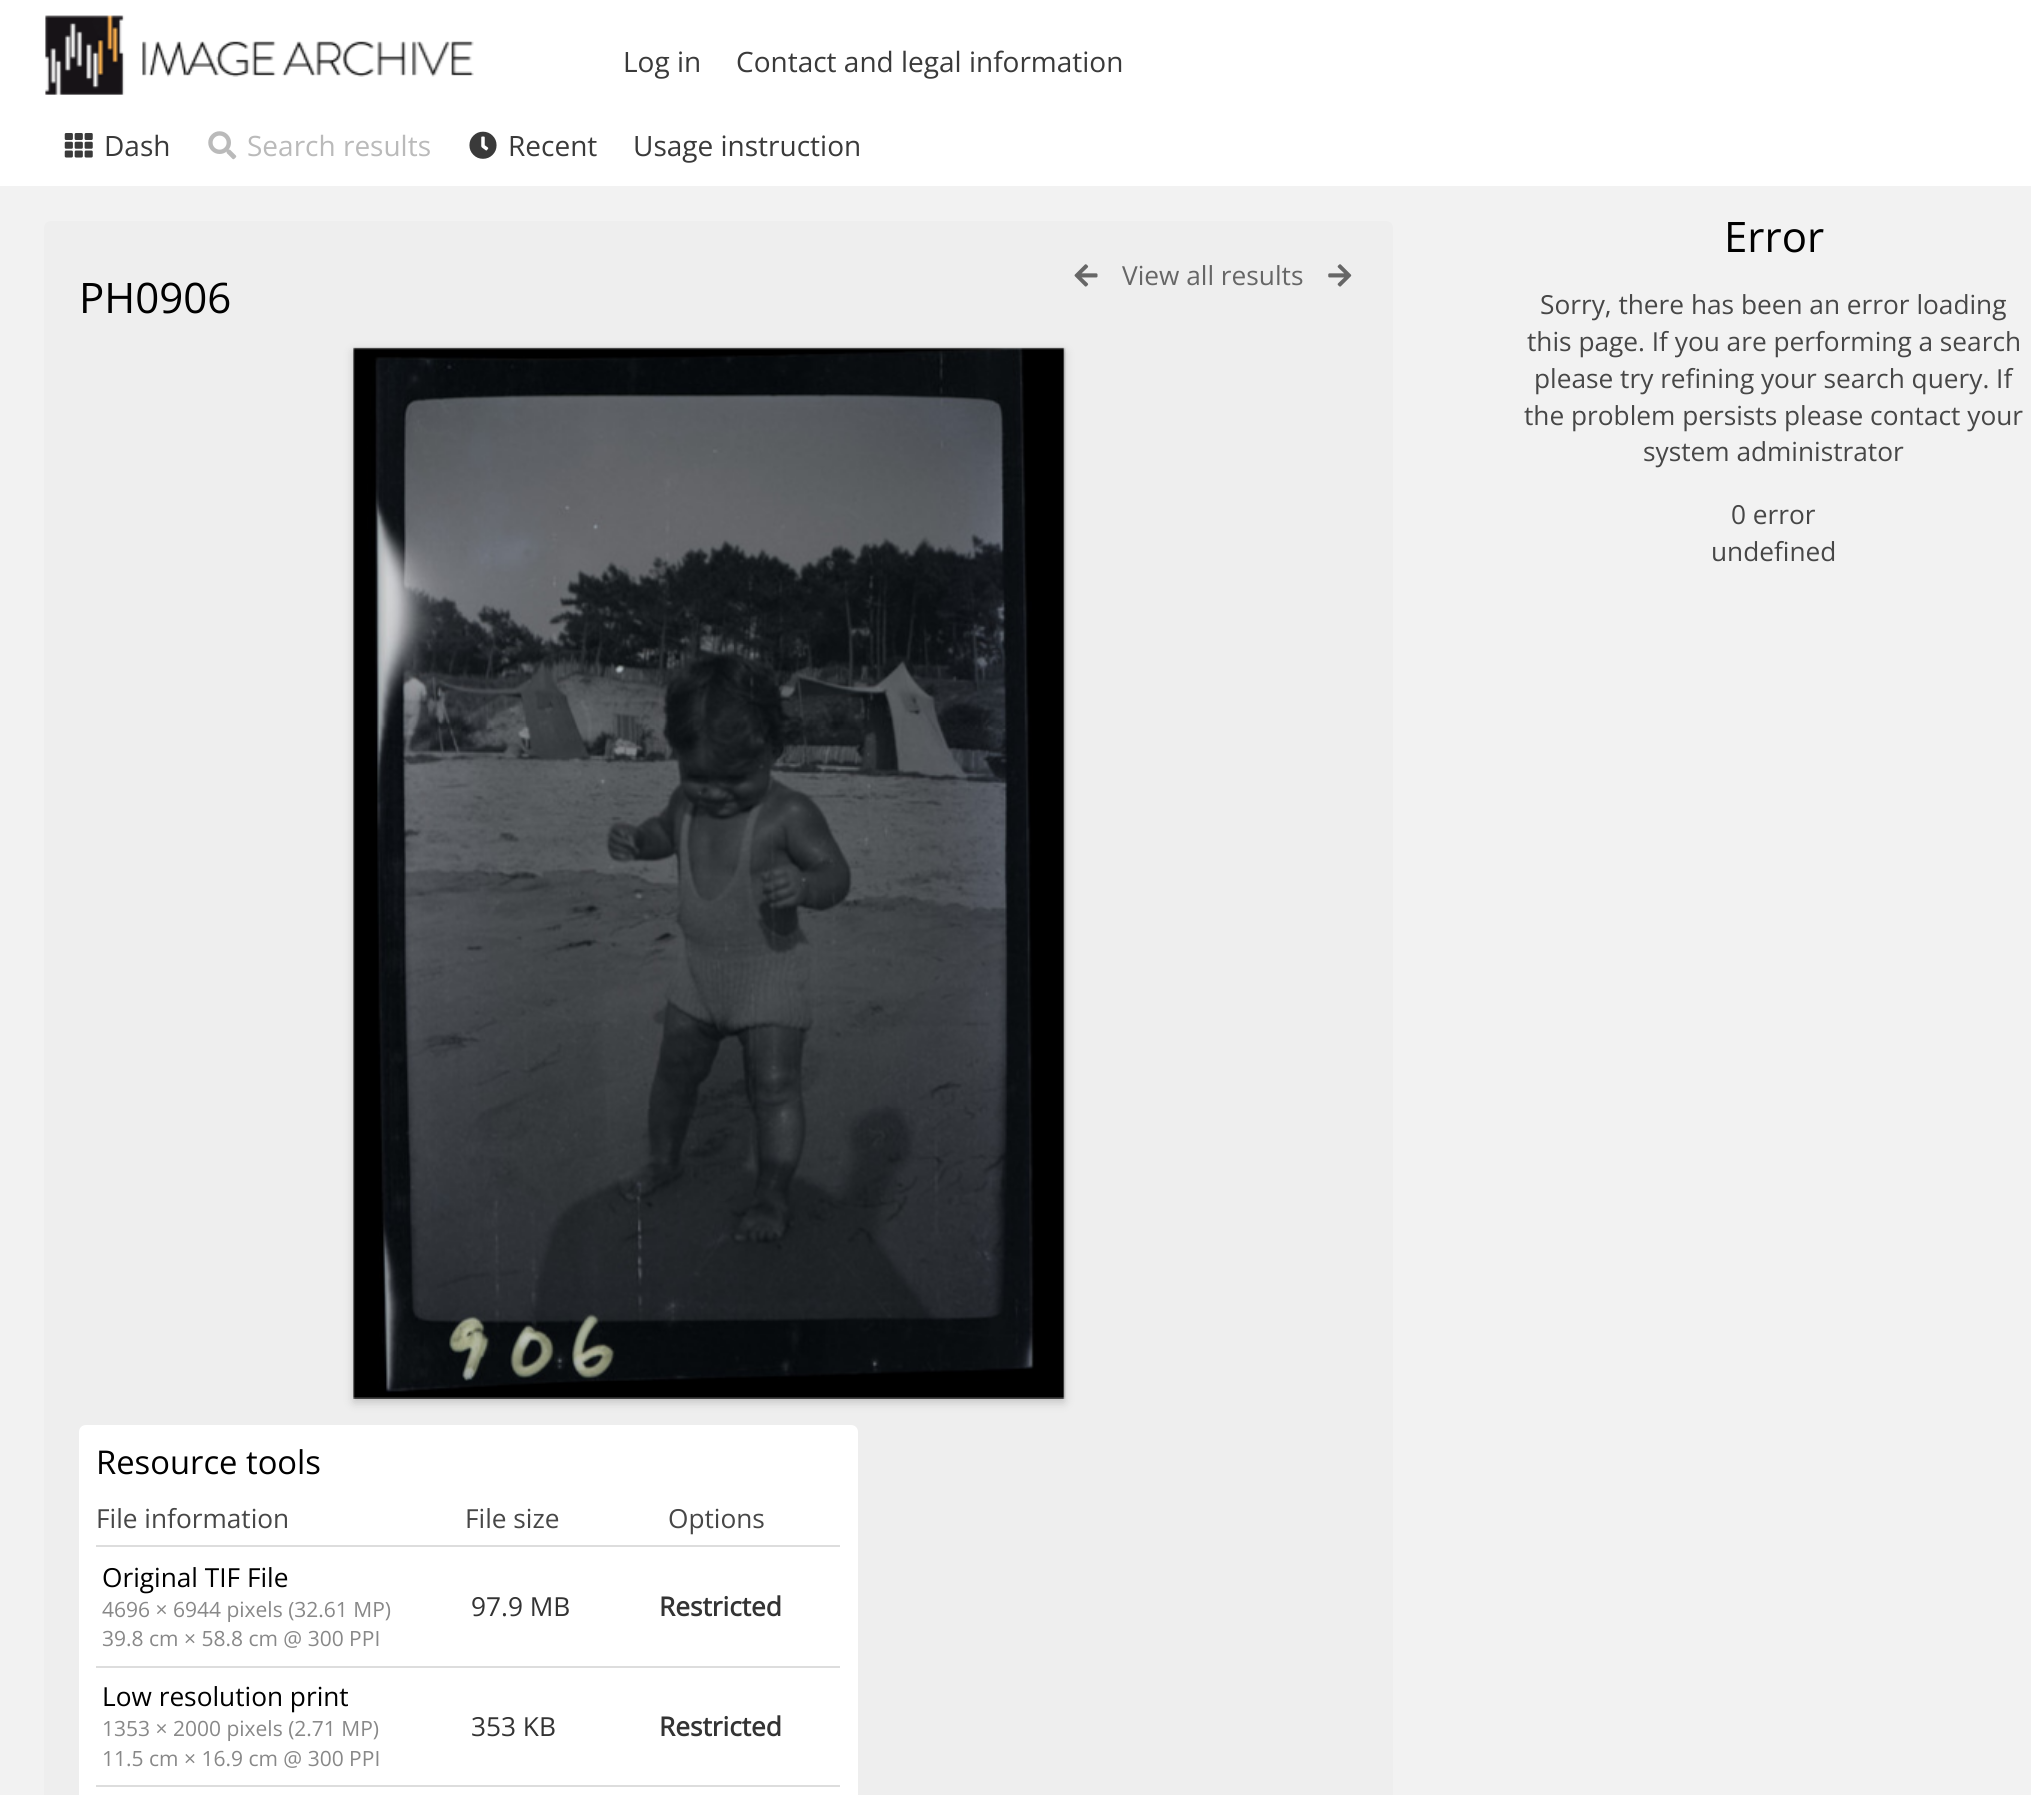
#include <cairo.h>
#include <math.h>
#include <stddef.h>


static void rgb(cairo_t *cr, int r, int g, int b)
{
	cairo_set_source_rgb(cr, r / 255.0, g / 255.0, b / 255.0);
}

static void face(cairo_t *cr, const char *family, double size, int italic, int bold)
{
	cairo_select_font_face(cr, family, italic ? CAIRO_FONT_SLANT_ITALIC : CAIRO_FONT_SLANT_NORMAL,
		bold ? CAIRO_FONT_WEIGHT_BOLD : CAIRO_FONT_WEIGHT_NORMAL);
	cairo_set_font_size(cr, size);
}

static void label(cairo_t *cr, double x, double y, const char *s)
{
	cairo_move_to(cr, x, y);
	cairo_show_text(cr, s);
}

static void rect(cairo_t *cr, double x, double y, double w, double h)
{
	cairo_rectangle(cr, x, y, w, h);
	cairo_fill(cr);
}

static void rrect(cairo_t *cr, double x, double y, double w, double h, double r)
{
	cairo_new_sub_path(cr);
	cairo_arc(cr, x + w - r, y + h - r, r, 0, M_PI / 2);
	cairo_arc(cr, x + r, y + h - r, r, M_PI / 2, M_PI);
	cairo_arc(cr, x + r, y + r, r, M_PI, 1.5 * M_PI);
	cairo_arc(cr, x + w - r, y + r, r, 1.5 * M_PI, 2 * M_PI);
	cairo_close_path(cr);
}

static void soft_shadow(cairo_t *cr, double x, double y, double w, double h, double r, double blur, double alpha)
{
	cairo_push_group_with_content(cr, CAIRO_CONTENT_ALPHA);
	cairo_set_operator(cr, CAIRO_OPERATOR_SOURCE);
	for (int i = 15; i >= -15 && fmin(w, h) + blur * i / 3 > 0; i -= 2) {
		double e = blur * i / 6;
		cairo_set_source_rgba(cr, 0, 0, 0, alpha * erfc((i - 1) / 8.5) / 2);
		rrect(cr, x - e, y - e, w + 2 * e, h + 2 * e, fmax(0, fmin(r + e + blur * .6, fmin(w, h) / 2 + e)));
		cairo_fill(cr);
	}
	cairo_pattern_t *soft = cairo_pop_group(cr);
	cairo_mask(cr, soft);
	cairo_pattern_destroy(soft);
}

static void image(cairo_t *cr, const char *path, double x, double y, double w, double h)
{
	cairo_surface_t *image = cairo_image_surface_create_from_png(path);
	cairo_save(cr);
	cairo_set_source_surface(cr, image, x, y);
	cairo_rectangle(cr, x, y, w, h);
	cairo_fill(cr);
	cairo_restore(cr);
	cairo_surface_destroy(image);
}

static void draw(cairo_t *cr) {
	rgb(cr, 242, 242, 242);
	cairo_paint(cr);
	rgb(cr, 255, 255, 255);
	rect(cr, 0, 0, 2031, 186);
	image(cr, "image0.png", 45, 15, 429, 80);
	face(cr, "Open Sans", 28, 0, 0);
	rgb(cr, 58, 58, 58);
	label(cr, 623, 72, "Log in");
	label(cr, 736, 72, "Contact and legal information");
	image(cr, "image1.png", 64, 133, 29, 25);
	label(cr, 104, 156, "Dash");
	image(cr, "image2.png", 208, 131, 29, 29);
	rgb(cr, 186, 186, 186);
	label(cr, 247, 156, "Search results");
	image(cr, "image3.png", 469, 131, 28, 28);
	rgb(cr, 58, 58, 58);
	label(cr, 508, 156, "Recent");
	label(cr, 633, 156, "Usage instruction");
	rgb(cr, 238, 238, 238);
	cairo_new_path(cr);
	cairo_move_to(cr, 51, 221);
	cairo_line_to(cr, 1386, 221);
	cairo_curve_to(cr, 1390, 221, 1393, 224, 1393, 228);
	cairo_line_to(cr, 1393, 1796);
	cairo_line_to(cr, 44, 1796);
	cairo_line_to(cr, 44, 228);
	cairo_curve_to(cr, 44, 224, 47, 221, 51, 221);
	cairo_close_path(cr);
	cairo_fill(cr);
	image(cr, "image4.png", 1074, 264, 24, 23);
	face(cr, "Open Sans", 26.25, 0, 0);
	rgb(cr, 102, 102, 102);
	label(cr, 1122, 285, "View all results");
	image(cr, "image5.png", 1328, 264, 24, 23);
	face(cr, "Open Sans", 42, 0, 0);
	rgb(cr, 0, 0, 0);
	label(cr, 79, 313, "PH0906");
	rgb(cr, 0, 0, 0);
	soft_shadow(cr, 354, 352, 710, 1050, 0, 5, 0.2);
	image(cr, "image6.png", 353, 347, 713, 1052);
	rgb(cr, 255, 255, 255);
	cairo_new_path(cr);
	cairo_move_to(cr, 86, 1425);
	cairo_line_to(cr, 851, 1425);
	cairo_curve_to(cr, 855, 1425, 858, 1428, 858, 1432);
	cairo_line_to(cr, 858, 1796);
	cairo_line_to(cr, 79, 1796);
	cairo_line_to(cr, 79, 1432);
	cairo_curve_to(cr, 79, 1428, 82, 1425, 86, 1425);
	cairo_close_path(cr);
	cairo_fill(cr);
	face(cr, "Open Sans", 32.75, 0, 0);
	rgb(cr, 0, 0, 0);
	label(cr, 96, 1474, "Resource tools");
	face(cr, "Open Sans", 26.25, 0, 0);
	rgb(cr, 71, 71, 71);
	label(cr, 96, 1528, "File information");
	label(cr, 465, 1528, "File size");
	label(cr, 668, 1528, "Options");
	rgb(cr, 221, 221, 221);
	rect(cr, 96, 1545, 744, 2);
	rgb(cr, 0, 0, 0);
	label(cr, 102, 1587, "Original TIF File");
	face(cr, "Open Sans", 21, 0, 0);
	rgb(cr, 136, 136, 136);
	label(cr, 102, 1617, "4696 × 6944 pixels (32.61 MP)");
	label(cr, 102, 1646, "39.8 cm × 58.8 cm @ 300 PPI");
	face(cr, "Open Sans", 26.25, 0, 0);
	rgb(cr, 51, 51, 51);
	label(cr, 471, 1616, "97.9 MB");
	face(cr, "Open Sans", 26.25, 0, 1);
	label(cr, 659, 1616, "Restricted");
	rgb(cr, 221, 221, 221);
	rect(cr, 96, 1666, 744, 2);
	face(cr, "Open Sans", 26.25, 0, 0);
	rgb(cr, 0, 0, 0);
	label(cr, 102, 1706, "Low resolution print");
	face(cr, "Open Sans", 21, 0, 0);
	rgb(cr, 136, 136, 136);
	label(cr, 102, 1736, "1353 × 2000 pixels (2.71 MP)");
	label(cr, 102, 1766, "11.5 cm × 16.9 cm @ 300 PPI");
	face(cr, "Open Sans", 26.25, 0, 0);
	rgb(cr, 51, 51, 51);
	label(cr, 471, 1736, "353 KB");
	face(cr, "Open Sans", 26.25, 0, 1);
	label(cr, 659, 1736, "Restricted");
	rgb(cr, 221, 221, 221);
	rect(cr, 96, 1785, 744, 2);
	face(cr, "Open Sans", 42, 0, 0);
	rgb(cr, 0, 0, 0);
	label(cr, 1724, 252, "Error");
	face(cr, "Open Sans", 26.25, 0, 0);
	rgb(cr, 71, 71, 71);
	label(cr, 1540, 314, "Sorry, there has been an error loading");
	label(cr, 1527, 351, "this page. If you are performing a search");
	label(cr, 1534, 388, "please try refining your search query. If");
	label(cr, 1524, 425, "the problem persists please contact your");
	label(cr, 1643, 461, "system administrator");
	label(cr, 1731, 524, "0 error");
	label(cr, 1711, 561, "undefined");
}

int main(void) {
	cairo_surface_t *surface = cairo_image_surface_create(CAIRO_FORMAT_RGB24, 2031, 1795);
	cairo_t *cr = cairo_create(surface);
	cairo_font_options_t *options = cairo_font_options_create();
	cairo_font_options_set_hint_metrics(options, CAIRO_HINT_METRICS_OFF);
	cairo_font_options_set_hint_style(options, CAIRO_HINT_STYLE_NONE);
	cairo_set_font_options(cr, options);
	cairo_set_miter_limit(cr, 4);
	draw(cr);
	cairo_surface_write_to_png(surface, "render.png");
	cairo_font_options_destroy(options);
	cairo_destroy(cr);
	cairo_surface_destroy(surface);
	return 0;
}
